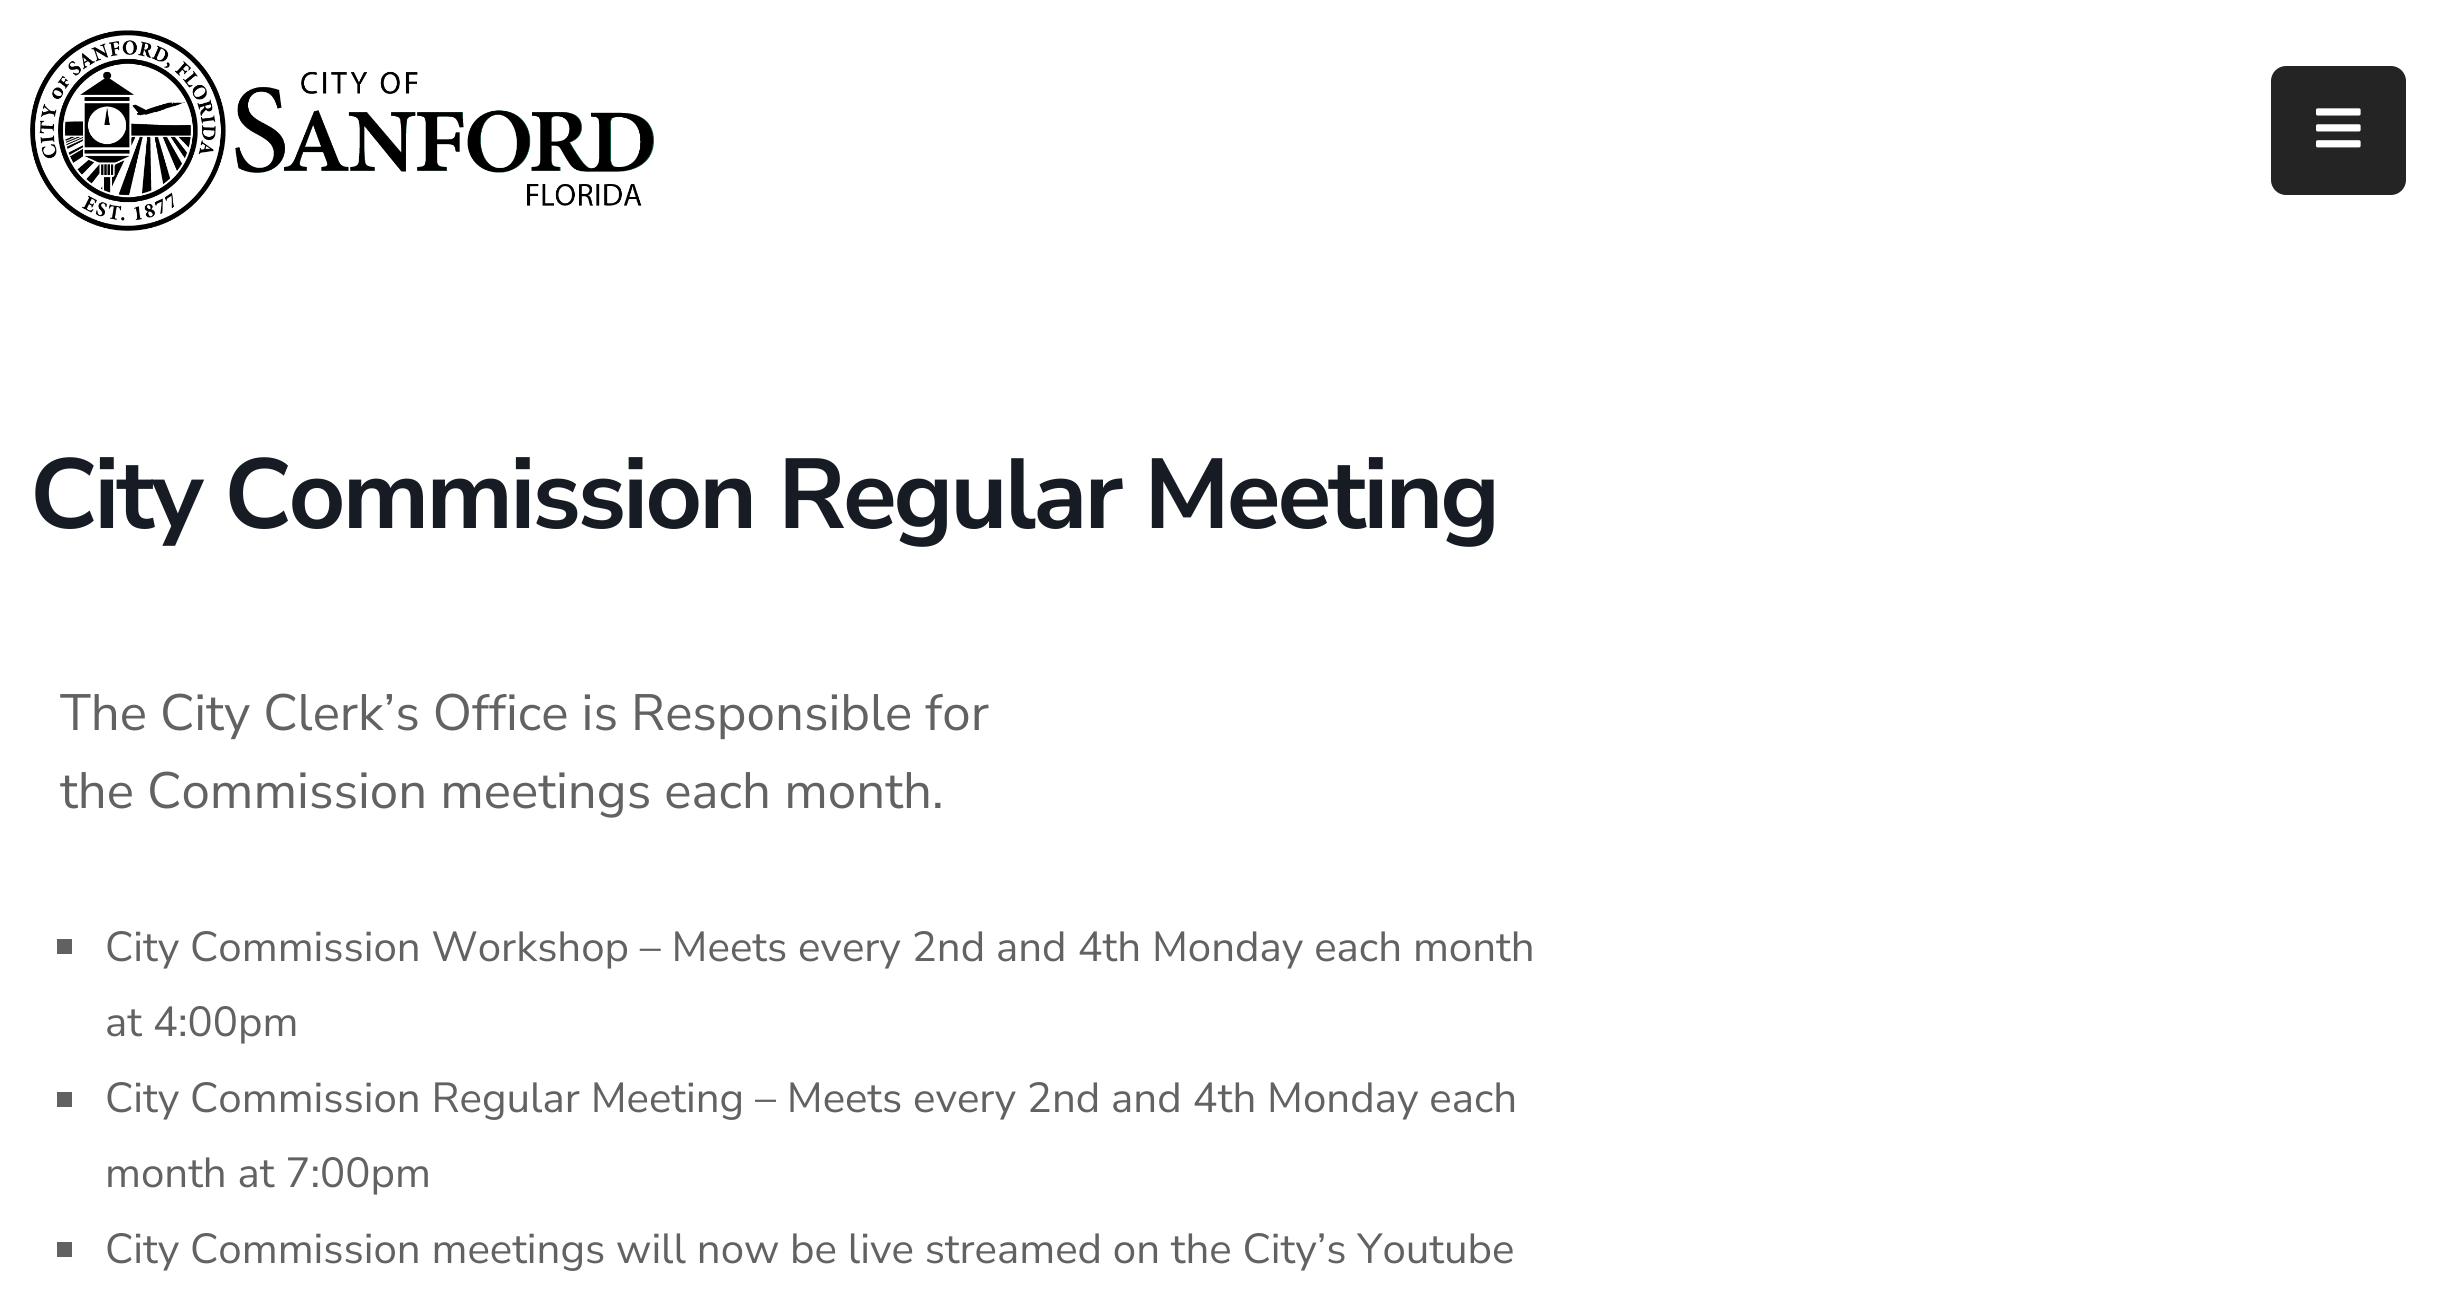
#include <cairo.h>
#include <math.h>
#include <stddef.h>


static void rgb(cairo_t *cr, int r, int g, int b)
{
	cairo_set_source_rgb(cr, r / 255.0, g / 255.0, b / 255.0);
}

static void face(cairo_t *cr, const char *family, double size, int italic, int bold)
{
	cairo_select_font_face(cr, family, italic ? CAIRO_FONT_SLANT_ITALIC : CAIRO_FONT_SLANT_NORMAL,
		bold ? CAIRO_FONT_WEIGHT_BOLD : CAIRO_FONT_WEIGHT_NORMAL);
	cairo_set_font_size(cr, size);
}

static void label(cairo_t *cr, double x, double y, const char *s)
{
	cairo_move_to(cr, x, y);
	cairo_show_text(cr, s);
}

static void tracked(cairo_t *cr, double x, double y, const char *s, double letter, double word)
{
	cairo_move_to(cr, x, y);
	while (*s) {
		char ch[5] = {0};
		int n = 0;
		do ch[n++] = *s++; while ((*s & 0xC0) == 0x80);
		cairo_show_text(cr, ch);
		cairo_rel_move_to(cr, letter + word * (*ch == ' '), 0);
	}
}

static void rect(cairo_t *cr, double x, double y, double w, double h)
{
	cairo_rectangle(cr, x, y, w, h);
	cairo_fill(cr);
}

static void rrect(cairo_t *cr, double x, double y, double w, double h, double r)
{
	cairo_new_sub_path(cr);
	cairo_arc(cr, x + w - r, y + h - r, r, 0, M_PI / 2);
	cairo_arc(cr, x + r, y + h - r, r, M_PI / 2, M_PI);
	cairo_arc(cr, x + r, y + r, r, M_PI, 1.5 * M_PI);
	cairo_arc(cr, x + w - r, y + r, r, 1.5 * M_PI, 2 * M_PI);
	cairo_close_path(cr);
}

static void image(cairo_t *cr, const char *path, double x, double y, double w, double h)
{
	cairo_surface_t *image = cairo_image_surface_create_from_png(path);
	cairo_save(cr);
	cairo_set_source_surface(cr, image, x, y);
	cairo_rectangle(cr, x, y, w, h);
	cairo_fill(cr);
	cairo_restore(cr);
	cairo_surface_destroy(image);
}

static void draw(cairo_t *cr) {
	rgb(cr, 255, 255, 255);
	cairo_paint(cr);
	image(cr, "image0.png", 30, 30, 624, 201);
	rgb(cr, 36, 36, 36);
	rrect(cr, 2271, 66, 135, 129, 15);
	cairo_fill(cr);
	image(cr, "image1.png", 2316, 108, 45, 40);
	face(cr, "Nunito Sans", 99, 0, 1);
	rgb(cr, 23, 28, 36);
	tracked(cr, 30, 528, "City Commission Regular Meeting", -3, 0);
	face(cr, "Nunito Sans", 51, 0, 0);
	rgb(cr, 98, 98, 98);
	label(cr, 60, 730, "The City Clerk’s Office is Responsible for");
	label(cr, 60, 808, "the Commission meetings each month.");
	rgb(cr, 97, 97, 97);
	rect(cr, 57, 939, 15, 15);
	face(cr, "Nunito Sans", 42, 0, 0);
	rgb(cr, 98, 98, 98);
	label(cr, 105, 961, "City Commission Workshop – Meets every 2nd and 4th Monday each month");
	label(cr, 105, 1036, "at 4:00pm");
	rgb(cr, 97, 97, 97);
	rect(cr, 57, 1092, 15, 15);
	rgb(cr, 98, 98, 98);
	label(cr, 105, 1112, "City Commission Regular Meeting – Meets every 2nd and 4th Monday each");
	label(cr, 105, 1187, "month at 7:00pm");
	rgb(cr, 97, 97, 97);
	rect(cr, 57, 1242, 15, 15);
	rgb(cr, 98, 98, 98);
	label(cr, 105, 1263, "City Commission meetings will now be live streamed on the City’s Youtube");
}

int main(void) {
	cairo_surface_t *surface = cairo_image_surface_create(CAIRO_FORMAT_RGB24, 2451, 1311);
	cairo_t *cr = cairo_create(surface);
	cairo_font_options_t *options = cairo_font_options_create();
	cairo_font_options_set_hint_metrics(options, CAIRO_HINT_METRICS_OFF);
	cairo_font_options_set_hint_style(options, CAIRO_HINT_STYLE_NONE);
	cairo_set_font_options(cr, options);
	cairo_set_miter_limit(cr, 4);
	draw(cr);
	cairo_surface_write_to_png(surface, "render.png");
	cairo_font_options_destroy(options);
	cairo_destroy(cr);
	cairo_surface_destroy(surface);
	return 0;
}
